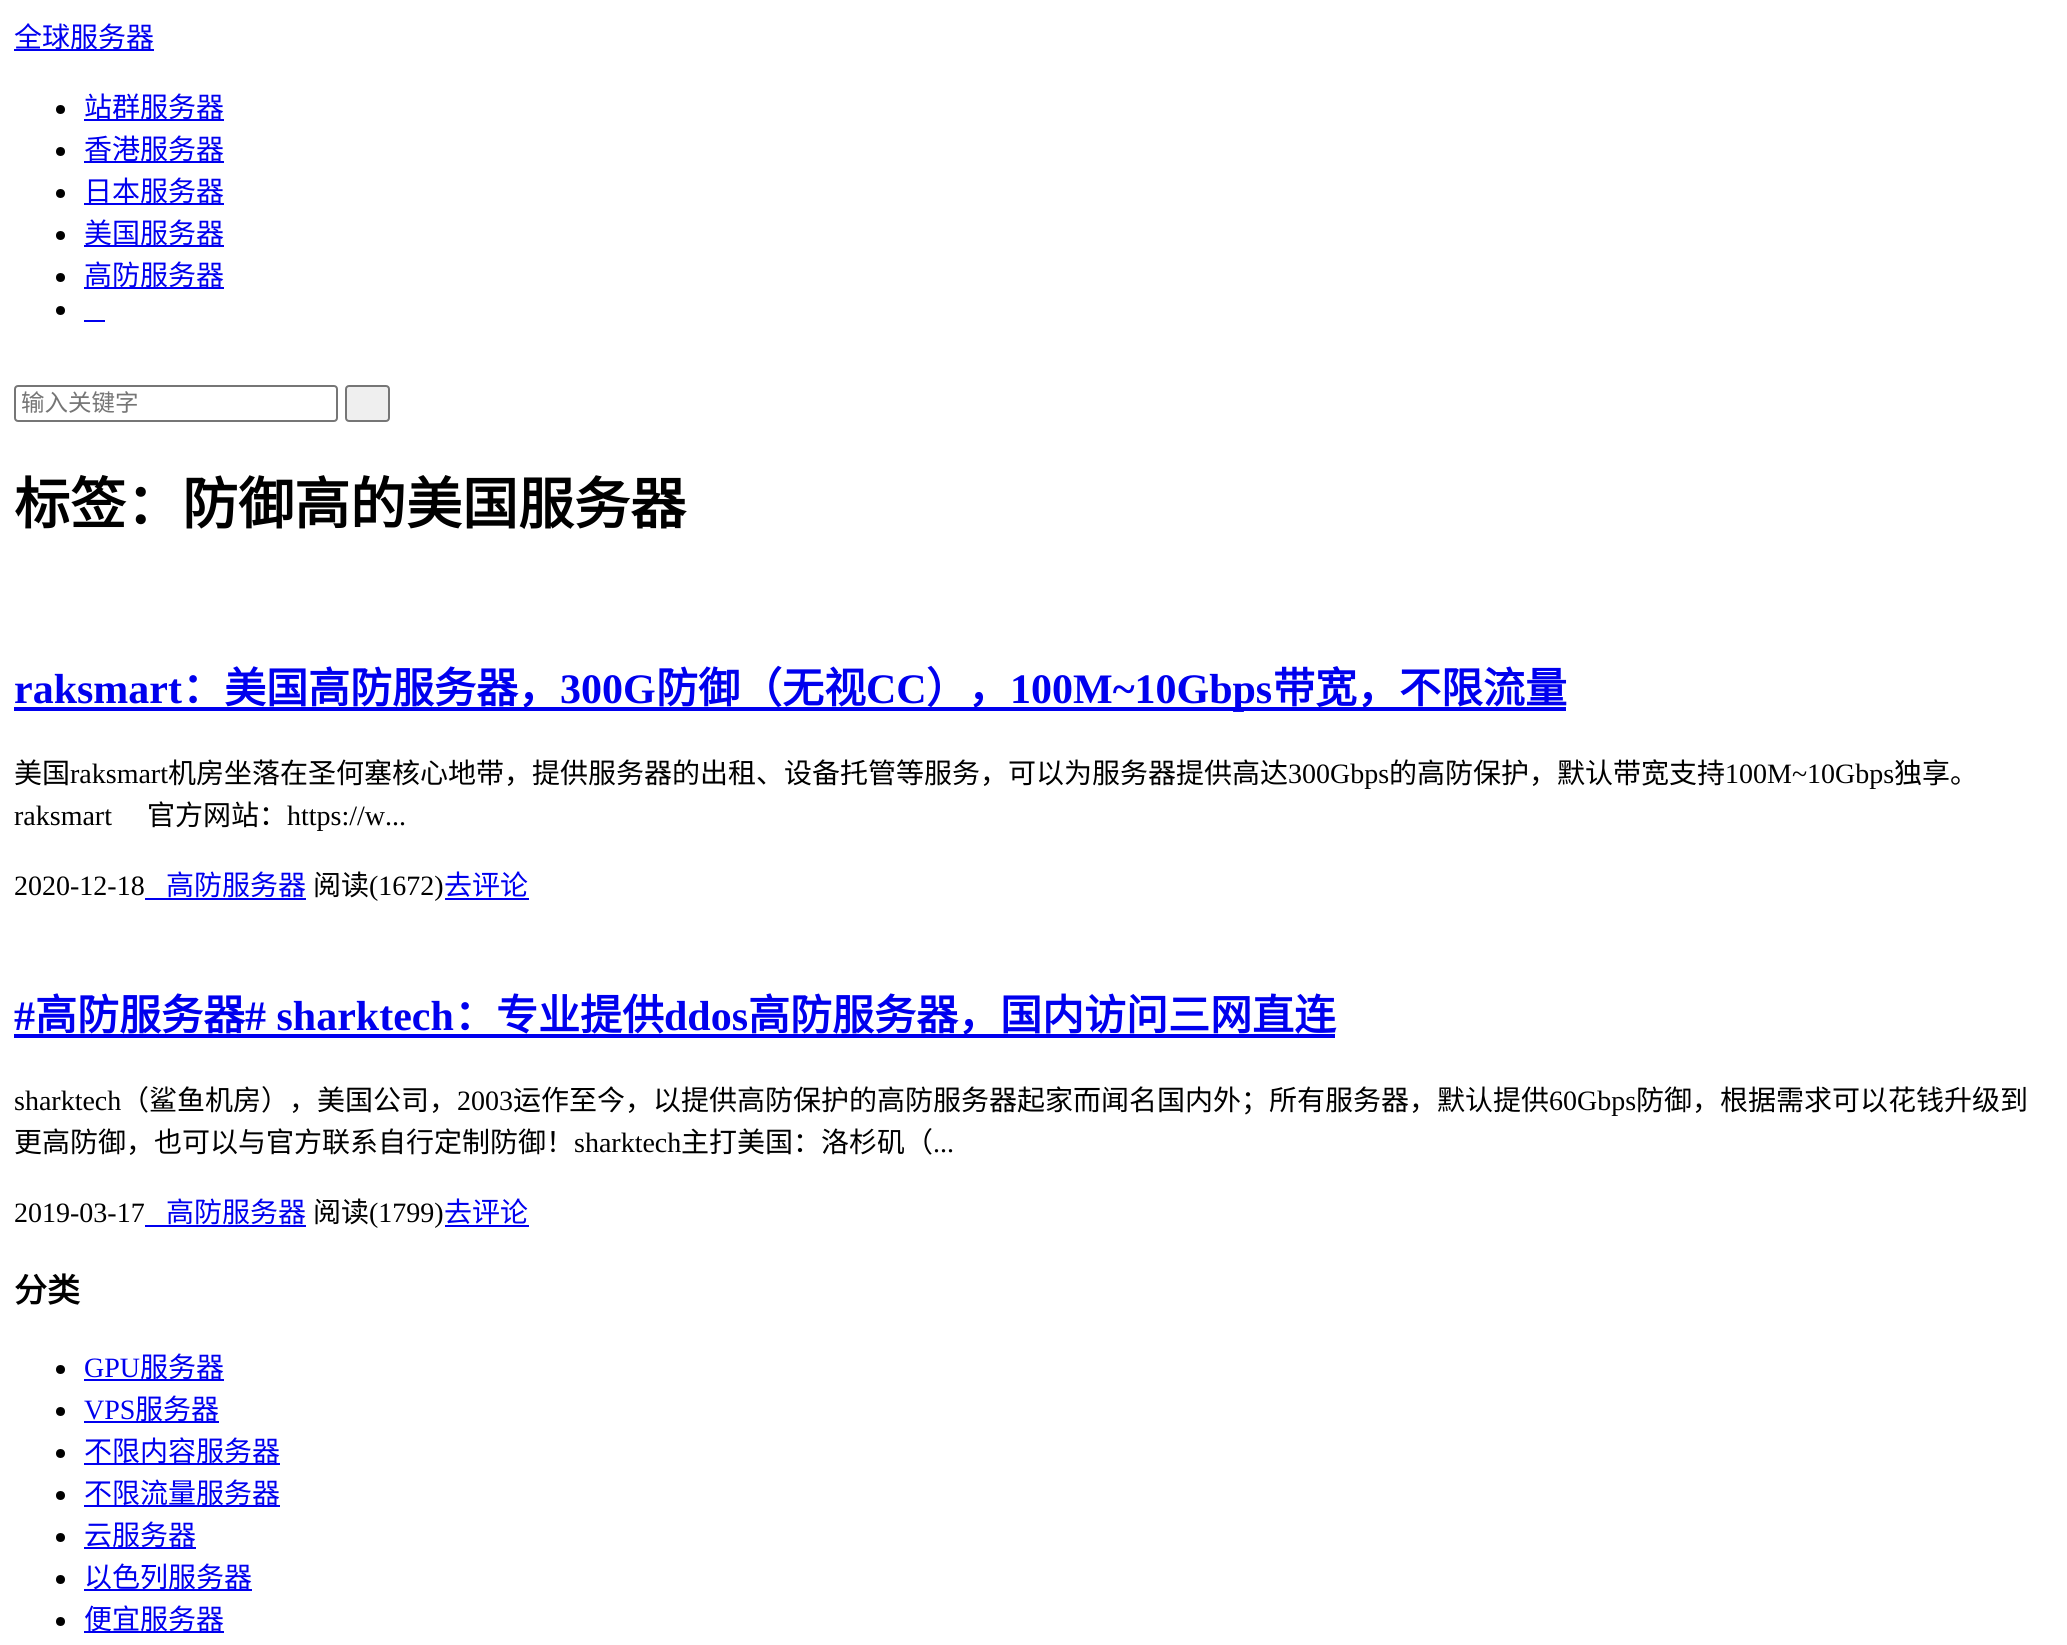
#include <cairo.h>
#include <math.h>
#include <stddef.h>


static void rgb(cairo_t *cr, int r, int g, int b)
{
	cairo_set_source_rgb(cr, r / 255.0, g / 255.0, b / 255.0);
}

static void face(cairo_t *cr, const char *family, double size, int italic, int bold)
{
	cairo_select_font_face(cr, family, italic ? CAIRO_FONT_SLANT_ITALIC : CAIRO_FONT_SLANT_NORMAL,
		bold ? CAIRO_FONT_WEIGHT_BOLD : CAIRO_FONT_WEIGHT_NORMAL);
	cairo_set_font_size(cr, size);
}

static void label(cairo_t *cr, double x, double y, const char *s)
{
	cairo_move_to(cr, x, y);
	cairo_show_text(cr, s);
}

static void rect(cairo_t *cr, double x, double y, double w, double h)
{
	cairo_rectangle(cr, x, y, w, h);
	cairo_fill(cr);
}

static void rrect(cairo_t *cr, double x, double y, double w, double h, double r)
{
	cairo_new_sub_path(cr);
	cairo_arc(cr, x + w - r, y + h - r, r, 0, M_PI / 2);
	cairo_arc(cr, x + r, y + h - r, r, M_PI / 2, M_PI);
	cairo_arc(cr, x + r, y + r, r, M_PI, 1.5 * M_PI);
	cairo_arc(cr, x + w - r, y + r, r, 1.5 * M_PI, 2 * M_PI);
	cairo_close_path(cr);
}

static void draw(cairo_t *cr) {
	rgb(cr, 255, 255, 255);
	cairo_paint(cr);
	rgb(cr, 0, 0, 238);
	rect(cr, 14, 49, 140, 2);
	face(cr, "Noto Sans CJK SC", 28, 0, 0);
	label(cr, 14, 47, "全球服务器");
	rgb(cr, 0, 0, 0);
	cairo_new_path(cr);
	cairo_arc(cr, 60.5, 109.5, 4.5, 0, 2 * M_PI);
	cairo_fill(cr);
	rgb(cr, 0, 0, 238);
	rect(cr, 84, 119, 140, 2);
	label(cr, 84, 117, "站群服务器");
	rgb(cr, 0, 0, 0);
	cairo_new_path(cr);
	cairo_arc(cr, 60.5, 151.5, 4.5, 0, 2 * M_PI);
	cairo_fill(cr);
	rgb(cr, 0, 0, 238);
	rect(cr, 84, 161, 140, 2);
	label(cr, 84, 159, "香港服务器");
	rgb(cr, 0, 0, 0);
	cairo_new_path(cr);
	cairo_arc(cr, 60.5, 193.5, 4.5, 0, 2 * M_PI);
	cairo_fill(cr);
	rgb(cr, 0, 0, 238);
	rect(cr, 84, 203, 140, 2);
	label(cr, 84, 201, "日本服务器");
	rgb(cr, 0, 0, 0);
	cairo_new_path(cr);
	cairo_arc(cr, 60.5, 235.5, 4.5, 0, 2 * M_PI);
	cairo_fill(cr);
	rgb(cr, 0, 0, 238);
	rect(cr, 84, 245, 140, 2);
	label(cr, 84, 243, "美国服务器");
	rgb(cr, 0, 0, 0);
	cairo_new_path(cr);
	cairo_arc(cr, 60.5, 277.5, 4.5, 0, 2 * M_PI);
	cairo_fill(cr);
	rgb(cr, 0, 0, 238);
	rect(cr, 84, 287, 140, 2);
	label(cr, 84, 285, "高防服务器");
	rgb(cr, 0, 0, 0);
	cairo_new_path(cr);
	cairo_arc(cr, 60.5, 310.5, 4.5, 0, 2 * M_PI);
	cairo_fill(cr);
	rgb(cr, 0, 0, 238);
	rect(cr, 84, 320, 21, 2);
	rrect(cr, 15, 386, 322, 35, 3);
	rgb(cr, 118, 118, 118);
	cairo_stroke(cr);
	face(cr, "Noto Sans CJK SC", 23.5, 0, 0);
	rgb(cr, 117, 117, 117);
	label(cr, 21, 411, "输入关键字");
	rgb(cr, 239, 239, 239);
	rrect(cr, 346, 386, 43, 35, 3);
	cairo_fill_preserve(cr);
	rgb(cr, 118, 118, 118);
	cairo_stroke(cr);
	face(cr, "Noto Sans CJK SC", 56, 0, 1);
	rgb(cr, 0, 0, 0);
	label(cr, 14, 524, "标签：防御高的美国服务器");
	face(cr, "Liberation Serif", 42, 0, 1);
	rgb(cr, 0, 0, 238);
	label(cr, 14, 703, "raksmart");
	rect(cr, 14, 707, 1552, 4);
	face(cr, "Noto Sans CJK SC", 42, 0, 1);
	label(cr, 182, 703, "：美国高防服务器，");
	face(cr, "Liberation Serif", 42, 0, 1);
	label(cr, 560, 703, "300G");
	face(cr, "Noto Sans CJK SC", 42, 0, 1);
	label(cr, 656, 703, "防御（无视");
	face(cr, "Liberation Serif", 42, 0, 1);
	label(cr, 866, 703, "CC");
	face(cr, "Noto Sans CJK SC", 42, 0, 1);
	label(cr, 926, 703, "），");
	face(cr, "Liberation Serif", 42, 0, 1);
	label(cr, 1010, 703, "100M~10Gbps");
	face(cr, "Noto Sans CJK SC", 42, 0, 1);
	label(cr, 1273, 703, "带宽，不限流量");
	face(cr, "Noto Sans CJK SC", 28, 0, 0);
	rgb(cr, 0, 0, 0);
	label(cr, 14, 783, "美国");
	face(cr, "Liberation Serif", 28, 0, 0);
	label(cr, 70, 783, "raksmart");
	face(cr, "Noto Sans CJK SC", 28, 0, 0);
	label(cr, 168, 783, "机房坐落在圣何塞核心地带，提供服务器的出租、设备托管等服务，可以为服务器提供高达");
	face(cr, "Liberation Serif", 28, 0, 0);
	label(cr, 1288, 783, "300Gbps");
	face(cr, "Noto Sans CJK SC", 28, 0, 0);
	label(cr, 1389, 783, "的高防保护，默认带宽支持");
	face(cr, "Liberation Serif", 28, 0, 0);
	label(cr, 1725, 783, "100M~10Gbps");
	face(cr, "Noto Sans CJK SC", 28, 0, 0);
	label(cr, 1894, 783, "独享。");
	face(cr, "Liberation Serif", 28, 0, 0);
	label(cr, 14, 825, "raksmart");
	face(cr, "Noto Sans CJK SC", 28, 0, 0);
	label(cr, 147, 825, "官方网站：");
	face(cr, "Liberation Serif", 28, 0, 0);
	label(cr, 287, 825, "https://w...");
	label(cr, 14, 895, "2020-12-18");
	face(cr, "Noto Sans CJK SC", 28, 0, 0);
	rgb(cr, 0, 0, 238);
	label(cr, 166, 895, "高防服务器");
	rect(cr, 145, 898, 161, 2);
	rgb(cr, 0, 0, 0);
	label(cr, 313, 895, "阅读");
	face(cr, "Liberation Serif", 28, 0, 0);
	label(cr, 369, 895, "(1672)");
	face(cr, "Noto Sans CJK SC", 28, 0, 0);
	rgb(cr, 0, 0, 238);
	label(cr, 444, 895, "去评论");
	rect(cr, 445, 898, 84, 2);
	face(cr, "Liberation Serif", 42, 0, 1);
	label(cr, 14, 1030, "#");
	rect(cr, 14, 1034, 1321, 4);
	face(cr, "Noto Sans CJK SC", 42, 0, 1);
	label(cr, 35, 1030, "高防服务器");
	face(cr, "Liberation Serif", 42, 0, 1);
	label(cr, 245, 1030, "# sharktech");
	face(cr, "Noto Sans CJK SC", 42, 0, 1);
	label(cr, 454, 1030, "：专业提供");
	face(cr, "Liberation Serif", 42, 0, 1);
	label(cr, 664, 1030, "ddos");
	face(cr, "Noto Sans CJK SC", 42, 0, 1);
	label(cr, 748, 1030, "高防服务器，国内访问三网直连");
	face(cr, "Liberation Serif", 28, 0, 0);
	rgb(cr, 0, 0, 0);
	label(cr, 14, 1110, "sharktech");
	face(cr, "Noto Sans CJK SC", 28, 0, 0);
	label(cr, 121, 1110, "（鲨鱼机房），美国公司，");
	face(cr, "Liberation Serif", 28, 0, 0);
	label(cr, 457, 1110, "2003");
	face(cr, "Noto Sans CJK SC", 28, 0, 0);
	label(cr, 513, 1110, "运作至今，以提供高防保护的高防服务器起家而闻名国内外；所有服务器，默认提供");
	face(cr, "Liberation Serif", 28, 0, 0);
	label(cr, 1549, 1110, "60Gbps");
	face(cr, "Noto Sans CJK SC", 28, 0, 0);
	label(cr, 1636, 1110, "防御，根据需求可以花钱升级到");
	label(cr, 14, 1152, "更高防御，也可以与官方联系自行定制防御！");
	face(cr, "Liberation Serif", 28, 0, 0);
	label(cr, 574, 1152, "sharktech");
	face(cr, "Noto Sans CJK SC", 28, 0, 0);
	label(cr, 681, 1152, "主打美国：洛杉矶（");
	face(cr, "Liberation Serif", 28, 0, 0);
	label(cr, 933, 1152, "...");
	label(cr, 14, 1222, "2019-03-17");
	face(cr, "Noto Sans CJK SC", 28, 0, 0);
	rgb(cr, 0, 0, 238);
	label(cr, 166, 1222, "高防服务器");
	rect(cr, 145, 1225, 161, 2);
	rgb(cr, 0, 0, 0);
	label(cr, 313, 1222, "阅读");
	face(cr, "Liberation Serif", 28, 0, 0);
	label(cr, 369, 1222, "(1799)");
	face(cr, "Noto Sans CJK SC", 28, 0, 0);
	rgb(cr, 0, 0, 238);
	label(cr, 444, 1222, "去评论");
	rect(cr, 445, 1225, 84, 2);
	face(cr, "Noto Sans CJK SC", 33, 0, 1);
	rgb(cr, 0, 0, 0);
	label(cr, 14, 1302, "分类");
	cairo_new_path(cr);
	cairo_arc(cr, 60.5, 1369.5, 4.5, 0, 2 * M_PI);
	cairo_fill(cr);
	face(cr, "Liberation Serif", 28, 0, 0);
	rgb(cr, 0, 0, 238);
	label(cr, 84, 1377, "GPU");
	rect(cr, 84, 1379, 140, 2);
	face(cr, "Noto Sans CJK SC", 28, 0, 0);
	label(cr, 140, 1377, "服务器");
	rgb(cr, 0, 0, 0);
	cairo_new_path(cr);
	cairo_arc(cr, 60.5, 1411.5, 4.5, 0, 2 * M_PI);
	cairo_fill(cr);
	face(cr, "Liberation Serif", 28, 0, 0);
	rgb(cr, 0, 0, 238);
	label(cr, 84, 1419, "VPS");
	rect(cr, 84, 1421, 135, 2);
	face(cr, "Noto Sans CJK SC", 28, 0, 0);
	label(cr, 135, 1419, "服务器");
	rgb(cr, 0, 0, 0);
	cairo_new_path(cr);
	cairo_arc(cr, 60.5, 1453.5, 4.5, 0, 2 * M_PI);
	cairo_fill(cr);
	rgb(cr, 0, 0, 238);
	rect(cr, 84, 1463, 196, 2);
	label(cr, 84, 1461, "不限内容服务器");
	rgb(cr, 0, 0, 0);
	cairo_new_path(cr);
	cairo_arc(cr, 60.5, 1495.5, 4.5, 0, 2 * M_PI);
	cairo_fill(cr);
	rgb(cr, 0, 0, 238);
	rect(cr, 84, 1505, 196, 2);
	label(cr, 84, 1503, "不限流量服务器");
	rgb(cr, 0, 0, 0);
	cairo_new_path(cr);
	cairo_arc(cr, 60.5, 1537.5, 4.5, 0, 2 * M_PI);
	cairo_fill(cr);
	rgb(cr, 0, 0, 238);
	rect(cr, 84, 1547, 112, 2);
	label(cr, 84, 1545, "云服务器");
	rgb(cr, 0, 0, 0);
	cairo_new_path(cr);
	cairo_arc(cr, 60.5, 1579.5, 4.5, 0, 2 * M_PI);
	cairo_fill(cr);
	rgb(cr, 0, 0, 238);
	rect(cr, 84, 1589, 168, 2);
	label(cr, 84, 1587, "以色列服务器");
	rgb(cr, 0, 0, 0);
	cairo_new_path(cr);
	cairo_arc(cr, 60.5, 1621.5, 4.5, 0, 2 * M_PI);
	cairo_fill(cr);
	rgb(cr, 0, 0, 238);
	rect(cr, 84, 1631, 140, 2);
	label(cr, 84, 1629, "便宜服务器");
}

int main(void) {
	cairo_surface_t *surface = cairo_image_surface_create(CAIRO_FORMAT_RGB24, 2067, 1645);
	cairo_t *cr = cairo_create(surface);
	cairo_font_options_t *options = cairo_font_options_create();
	cairo_font_options_set_hint_metrics(options, CAIRO_HINT_METRICS_OFF);
	cairo_font_options_set_hint_style(options, CAIRO_HINT_STYLE_NONE);
	cairo_set_font_options(cr, options);
	cairo_set_miter_limit(cr, 4);
	draw(cr);
	cairo_surface_write_to_png(surface, "render.png");
	cairo_font_options_destroy(options);
	cairo_destroy(cr);
	cairo_surface_destroy(surface);
	return 0;
}
